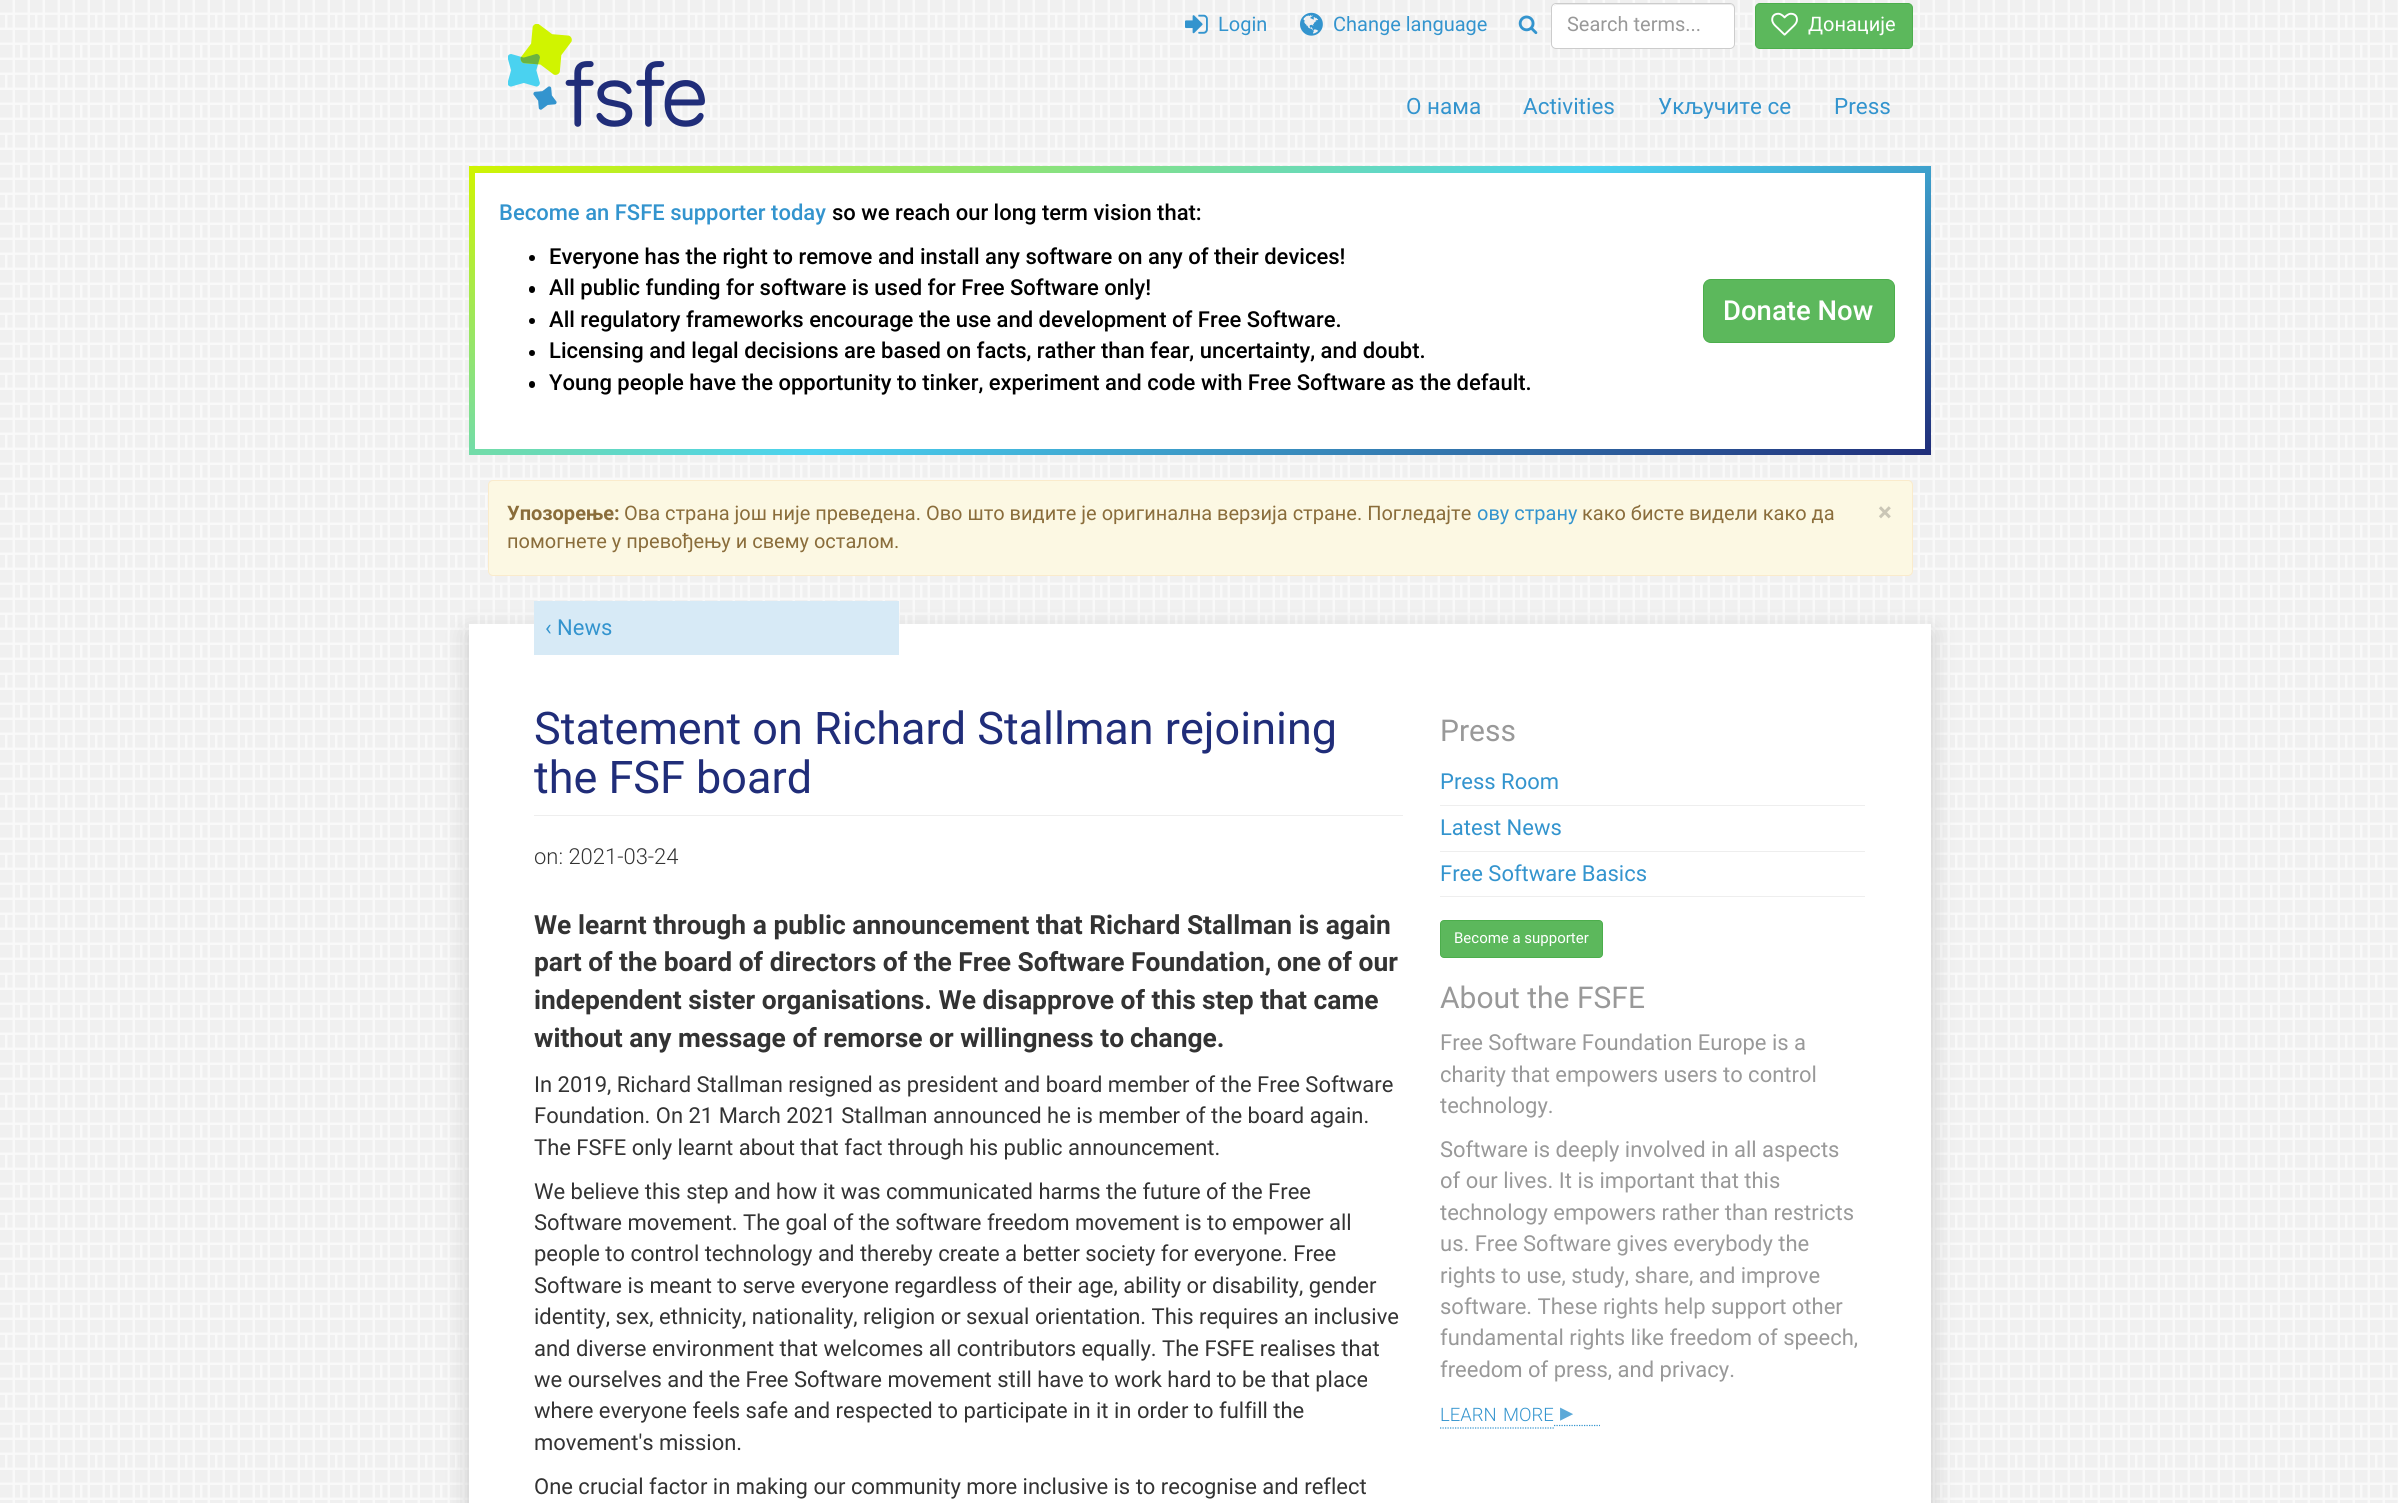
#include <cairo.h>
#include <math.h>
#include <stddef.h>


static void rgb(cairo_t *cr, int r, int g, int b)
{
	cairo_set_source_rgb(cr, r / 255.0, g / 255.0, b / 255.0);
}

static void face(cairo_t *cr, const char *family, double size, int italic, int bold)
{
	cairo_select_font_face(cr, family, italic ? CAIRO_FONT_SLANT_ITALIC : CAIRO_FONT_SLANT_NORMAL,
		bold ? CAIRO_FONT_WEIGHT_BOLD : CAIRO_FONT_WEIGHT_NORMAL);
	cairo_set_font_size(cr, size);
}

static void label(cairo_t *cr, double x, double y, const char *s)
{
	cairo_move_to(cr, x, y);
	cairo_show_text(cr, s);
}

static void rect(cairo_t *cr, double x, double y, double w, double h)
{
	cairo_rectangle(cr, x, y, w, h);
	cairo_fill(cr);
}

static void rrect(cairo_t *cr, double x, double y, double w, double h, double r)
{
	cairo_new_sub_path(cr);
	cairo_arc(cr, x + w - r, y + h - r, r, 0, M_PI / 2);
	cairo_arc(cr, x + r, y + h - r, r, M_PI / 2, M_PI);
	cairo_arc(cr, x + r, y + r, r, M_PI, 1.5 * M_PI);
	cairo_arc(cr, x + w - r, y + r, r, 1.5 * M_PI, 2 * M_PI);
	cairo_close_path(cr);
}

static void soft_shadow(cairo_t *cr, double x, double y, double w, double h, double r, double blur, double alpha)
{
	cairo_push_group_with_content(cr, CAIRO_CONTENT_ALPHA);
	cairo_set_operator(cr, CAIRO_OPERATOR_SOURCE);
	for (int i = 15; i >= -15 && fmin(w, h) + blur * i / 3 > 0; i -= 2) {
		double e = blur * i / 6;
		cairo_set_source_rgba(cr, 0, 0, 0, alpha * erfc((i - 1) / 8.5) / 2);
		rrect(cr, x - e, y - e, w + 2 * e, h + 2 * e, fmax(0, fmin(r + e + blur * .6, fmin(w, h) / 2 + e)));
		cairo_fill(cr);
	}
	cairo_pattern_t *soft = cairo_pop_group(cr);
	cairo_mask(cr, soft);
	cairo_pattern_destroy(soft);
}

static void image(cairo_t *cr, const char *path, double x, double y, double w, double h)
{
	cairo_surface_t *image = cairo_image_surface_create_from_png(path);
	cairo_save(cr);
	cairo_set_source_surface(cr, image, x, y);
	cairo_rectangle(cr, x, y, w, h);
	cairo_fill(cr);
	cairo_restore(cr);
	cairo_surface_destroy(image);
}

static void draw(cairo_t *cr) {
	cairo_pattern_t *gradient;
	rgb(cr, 255, 255, 255);
	cairo_paint(cr);
	image(cr, "image0.png", 0, 0, 2398, 1503);
	image(cr, "image1.png", 508, 24, 197, 103);
	image(cr, "image2.png", 1185, 14, 23, 20);
	face(cr, "Roboto", 20, 0, 0);
	rgb(cr, 51, 148, 206);
	label(cr, 1218, 31, "Login");
	image(cr, "image3.png", 1300, 12, 23, 24);
	label(cr, 1333, 31, "Change language");
	image(cr, "image4.png", 1518, 15, 20, 20);
	rgb(cr, 255, 255, 255);
	rrect(cr, 1551, 3, 184, 46, 5);
	cairo_fill(cr);
	rgb(cr, 236, 236, 236);
	cairo_new_path(cr);
	cairo_move_to(cr, 1556, 5);
	cairo_line_to(cr, 1730, 5);
	cairo_curve_to(cr, 1732, 5, 1734, 7, 1734, 9);
	cairo_line_to(cr, 1734, 8);
	cairo_curve_to(cr, 1734, 6, 1732, 4, 1730, 4);
	cairo_line_to(cr, 1557, 4);
	cairo_curve_to(cr, 1556, 4, 1554, 5, 1554, 6);
	cairo_close_path(cr);
	cairo_fill(cr);
	rrect(cr, 1551.5, 3.5, 183, 45, 4.5);
	rgb(cr, 204, 204, 204);
	cairo_set_line_width(cr, 1);
	cairo_stroke(cr);
	rgb(cr, 153, 153, 153);
	label(cr, 1567, 31, "Search terms...");
	rgb(cr, 92, 184, 92);
	rrect(cr, 1755.5, 3.5, 157, 45, 4.5);
	cairo_fill_preserve(cr);
	rgb(cr, 76, 174, 76);
	cairo_stroke(cr);
	image(cr, "image5.png", 1771, 12, 27, 24);
	rgb(cr, 255, 255, 255);
	label(cr, 1808, 31, "Донације");
	face(cr, "Roboto", 22.5, 0, 0);
	rgb(cr, 51, 148, 206);
	label(cr, 1406, 114, "О нама");
	label(cr, 1523, 114, "Activities");
	label(cr, 1658, 114, "Укључите се");
	label(cr, 1834, 114, "Press");
	gradient = cairo_pattern_create_linear(1068, -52, 1332, 673);
	cairo_pattern_add_color_stop_rgba(gradient, 0, 0.816, 0.957, 0, 1);
	cairo_pattern_add_color_stop_rgba(gradient, 0.5, 0.29, 0.824, 0.941, 1);
	cairo_pattern_add_color_stop_rgba(gradient, 1, 0.125, 0.176, 0.475, 1);
	cairo_set_source(cr, gradient);
	cairo_pattern_destroy(gradient);
	rect(cr, 469, 166, 1462, 289);
	rgb(cr, 255, 255, 255);
	rect(cr, 475, 173, 1450, 276);
	face(cr, "Roboto Medium", 22, 0, 0);
	rgb(cr, 51, 148, 206);
	label(cr, 499, 220, "Become an FSFE supporter today");
	rgb(cr, 0, 0, 0);
	label(cr, 832, 220, "so we reach our long term vision that:");
	cairo_new_path(cr);
	cairo_arc(cr, 532, 258, 3, 0, 2 * M_PI);
	cairo_fill(cr);
	label(cr, 549, 264, "Everyone has the right to remove and install any software on any of their devices!");
	rrect(cr, 529, 286, 6, 7, 3);
	cairo_fill(cr);
	label(cr, 549, 295, "All public funding for software is used for Free Software only!");
	cairo_new_path(cr);
	cairo_arc(cr, 532, 321, 3, 0, 2 * M_PI);
	cairo_fill(cr);
	label(cr, 549, 327, "All regulatory frameworks encourage the use and development of Free Software.");
	cairo_new_path(cr);
	cairo_arc(cr, 532, 353, 3, 0, 2 * M_PI);
	cairo_fill(cr);
	label(cr, 549, 358, "Licensing and legal decisions are based on facts, rather than fear, uncertainty, and doubt.");
	rrect(cr, 529, 381, 6, 7, 3);
	cairo_fill(cr);
	label(cr, 549, 390, "Young people have the opportunity to tinker, experiment and code with Free Software as the default.");
	rgb(cr, 92, 184, 92);
	rrect(cr, 1703.5, 279.5, 191, 63, 7.5);
	cairo_fill_preserve(cr);
	rgb(cr, 76, 174, 76);
	cairo_stroke(cr);
	face(cr, "Roboto Medium", 27.5, 0, 0);
	rgb(cr, 255, 255, 255);
	label(cr, 1723, 320, "Donate Now");
	rgb(cr, 252, 248, 227);
	rrect(cr, 488.5, 480.5, 1424, 95, 4.5);
	cairo_fill_preserve(cr);
	rgb(cr, 250, 235, 204);
	cairo_stroke(cr);
	face(cr, "Roboto", 20, 0, 1);
	rgb(cr, 138, 109, 59);
	label(cr, 507, 520, "Упозорење:");
	face(cr, "Roboto", 20, 0, 0);
	label(cr, 624, 520, "Ова страна још није преведена. Ово што видите је оригинална верзија стране. Погледајте");
	rgb(cr, 51, 148, 206);
	label(cr, 1477, 520, "ову страну");
	rgb(cr, 138, 109, 59);
	label(cr, 1582, 520, "како бисте видели како да");
	label(cr, 507, 548, "помогнете у превођењу и свему осталом.");
	face(cr, "Roboto", 26, 0, 1);
	rgb(cr, 202, 198, 182);
	label(cr, 1878, 521, "×");
	rgb(cr, 200, 200, 200);
	soft_shadow(cr, 469, 633, 1462, 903, 0, 11, 1);
	rgb(cr, 255, 255, 255);
	rect(cr, 469, 624, 1462, 879);
	rgb(cr, 215, 234, 246);
	rect(cr, 534, 601, 365, 54);
	face(cr, "Roboto", 22, 0, 0);
	rgb(cr, 51, 148, 206);
	label(cr, 545, 635, "‹ News");
	rgb(cr, 238, 238, 238);
	rect(cr, 534, 815, 869, 1);
	face(cr, "Roboto", 45, 0, 0);
	rgb(cr, 32, 45, 121);
	label(cr, 534, 744, "Statement on Richard Stallman rejoining");
	label(cr, 534, 793, "the FSF board");
	face(cr, "Roboto Light", 22, 0, 0);
	rgb(cr, 51, 51, 51);
	label(cr, 534, 864, "on: 2021-03-24");
	face(cr, "Roboto", 26.4, 0, 1);
	label(cr, 534, 934, "We learnt through a public announcement that Richard Stallman is again");
	label(cr, 534, 971, "part of the board of directors of the Free Software Foundation,");
	label(cr, 1277, 971, "one of our");
	label(cr, 534, 1009, "independent sister organisations. We disapprove of this");
	label(cr, 1202, 1009, "step that came");
	label(cr, 534, 1047, "without any message of remorse or willingness to");
	label(cr, 1130, 1047, "change.");
	face(cr, "Roboto", 22, 0, 0);
	label(cr, 534, 1092, "In 2019, Richard Stallman resigned as president and board member of the Free Software");
	label(cr, 534, 1123, "Foundation. On 21 March 2021 Stallman announced he is member of the board again.");
	label(cr, 534, 1155, "The FSFE only learnt about that fact through his public announcement.");
	label(cr, 534, 1199, "We believe this step and how it was communicated harms the future of the Free");
	label(cr, 534, 1230, "Software movement. The goal of the software freedom movement is to empower all");
	label(cr, 534, 1261, "people to control technology and thereby create a better society for everyone. Free");
	label(cr, 534, 1293, "Software is meant to serve everyone regardless of their age, ability or disability, gender");
	label(cr, 534, 1324, "identity, sex, ethnicity, nationality, religion or sexual orientation. This requires an inclusive");
	label(cr, 534, 1356, "and diverse environment that welcomes all contributors equally. The FSFE realises that");
	label(cr, 534, 1387, "we ourselves and the Free Software movement still have to work hard to be that place");
	label(cr, 534, 1418, "where everyone feels safe and respected to participate in it in order to fulfill the");
	label(cr, 534, 1450, "movement's mission.");
	label(cr, 534, 1494, "One crucial factor in making our community more inclusive is to recognise and reflect");
	face(cr, "Roboto", 30, 0, 0);
	rgb(cr, 153, 153, 153);
	label(cr, 1440, 741, "Press");
	rgb(cr, 238, 238, 238);
	rect(cr, 1440, 805, 425, 1);
	face(cr, "Roboto", 22, 0, 0);
	rgb(cr, 51, 148, 206);
	label(cr, 1440, 789, "Press Room");
	rgb(cr, 238, 238, 238);
	rect(cr, 1440, 851, 425, 1);
	rgb(cr, 51, 148, 206);
	label(cr, 1440, 835, "Latest News");
	rgb(cr, 238, 238, 238);
	rect(cr, 1440, 896, 425, 1);
	rgb(cr, 51, 148, 206);
	label(cr, 1440, 881, "Free Software Basics");
	rgb(cr, 92, 184, 92);
	rrect(cr, 1440.5, 920.5, 162, 37, 3.5);
	cairo_fill_preserve(cr);
	rgb(cr, 76, 174, 76);
	cairo_stroke(cr);
	face(cr, "Roboto", 15, 0, 0);
	rgb(cr, 255, 255, 255);
	label(cr, 1454, 943, "Become a supporter");
	face(cr, "Roboto", 30, 0, 0);
	rgb(cr, 153, 153, 153);
	label(cr, 1440, 1008, "About the FSFE");
	face(cr, "Roboto", 22, 0, 0);
	label(cr, 1440, 1050, "Free Software Foundation Europe is a");
	label(cr, 1440, 1082, "charity that empowers users to control");
	label(cr, 1440, 1113, "technology.");
	label(cr, 1440, 1157, "Software is deeply involved in all aspects");
	label(cr, 1440, 1188, "of our lives. It is important that this");
	label(cr, 1440, 1220, "technology empowers rather than restricts");
	label(cr, 1440, 1251, "us. Free Software gives everybody the");
	label(cr, 1440, 1283, "rights to use, study, share, and improve");
	label(cr, 1440, 1314, "software. These rights help support other");
	label(cr, 1440, 1345, "fundamental rights like freedom of speech,");
	label(cr, 1440, 1377, "freedom of press, and privacy.");
	cairo_new_path(cr);
	cairo_move_to(cr, 1440, 1428);
	cairo_line_to(cr, 1555, 1428);
	rgb(cr, 51, 148, 206);
	cairo_set_line_width(cr, 1.2);
	cairo_set_dash(cr, (double[]){1.25, 1.25}, 2, 0);
	cairo_stroke(cr);
	cairo_new_path(cr);
	cairo_move_to(cr, 1554, 1425.5);
	cairo_line_to(cr, 1600, 1425.5);
	cairo_stroke(cr);
	face(cr, "Roboto Light", 18.5, 0, 0);
	label(cr, 1440, 1421, "LEARN");
	label(cr, 1503, 1421, "MORE");
	face(cr, "DejaVu Sans", 26.4, 0, 0);
	rgb(cr, 92, 169, 216);
	label(cr, 1560, 1421, "▸");
}

int main(void) {
	cairo_surface_t *surface = cairo_image_surface_create(CAIRO_FORMAT_RGB24, 2398, 1503);
	cairo_t *cr = cairo_create(surface);
	cairo_font_options_t *options = cairo_font_options_create();
	cairo_font_options_set_hint_metrics(options, CAIRO_HINT_METRICS_OFF);
	cairo_font_options_set_hint_style(options, CAIRO_HINT_STYLE_NONE);
	cairo_set_font_options(cr, options);
	cairo_set_miter_limit(cr, 4);
	draw(cr);
	cairo_surface_write_to_png(surface, "render.png");
	cairo_font_options_destroy(options);
	cairo_destroy(cr);
	cairo_surface_destroy(surface);
	return 0;
}
